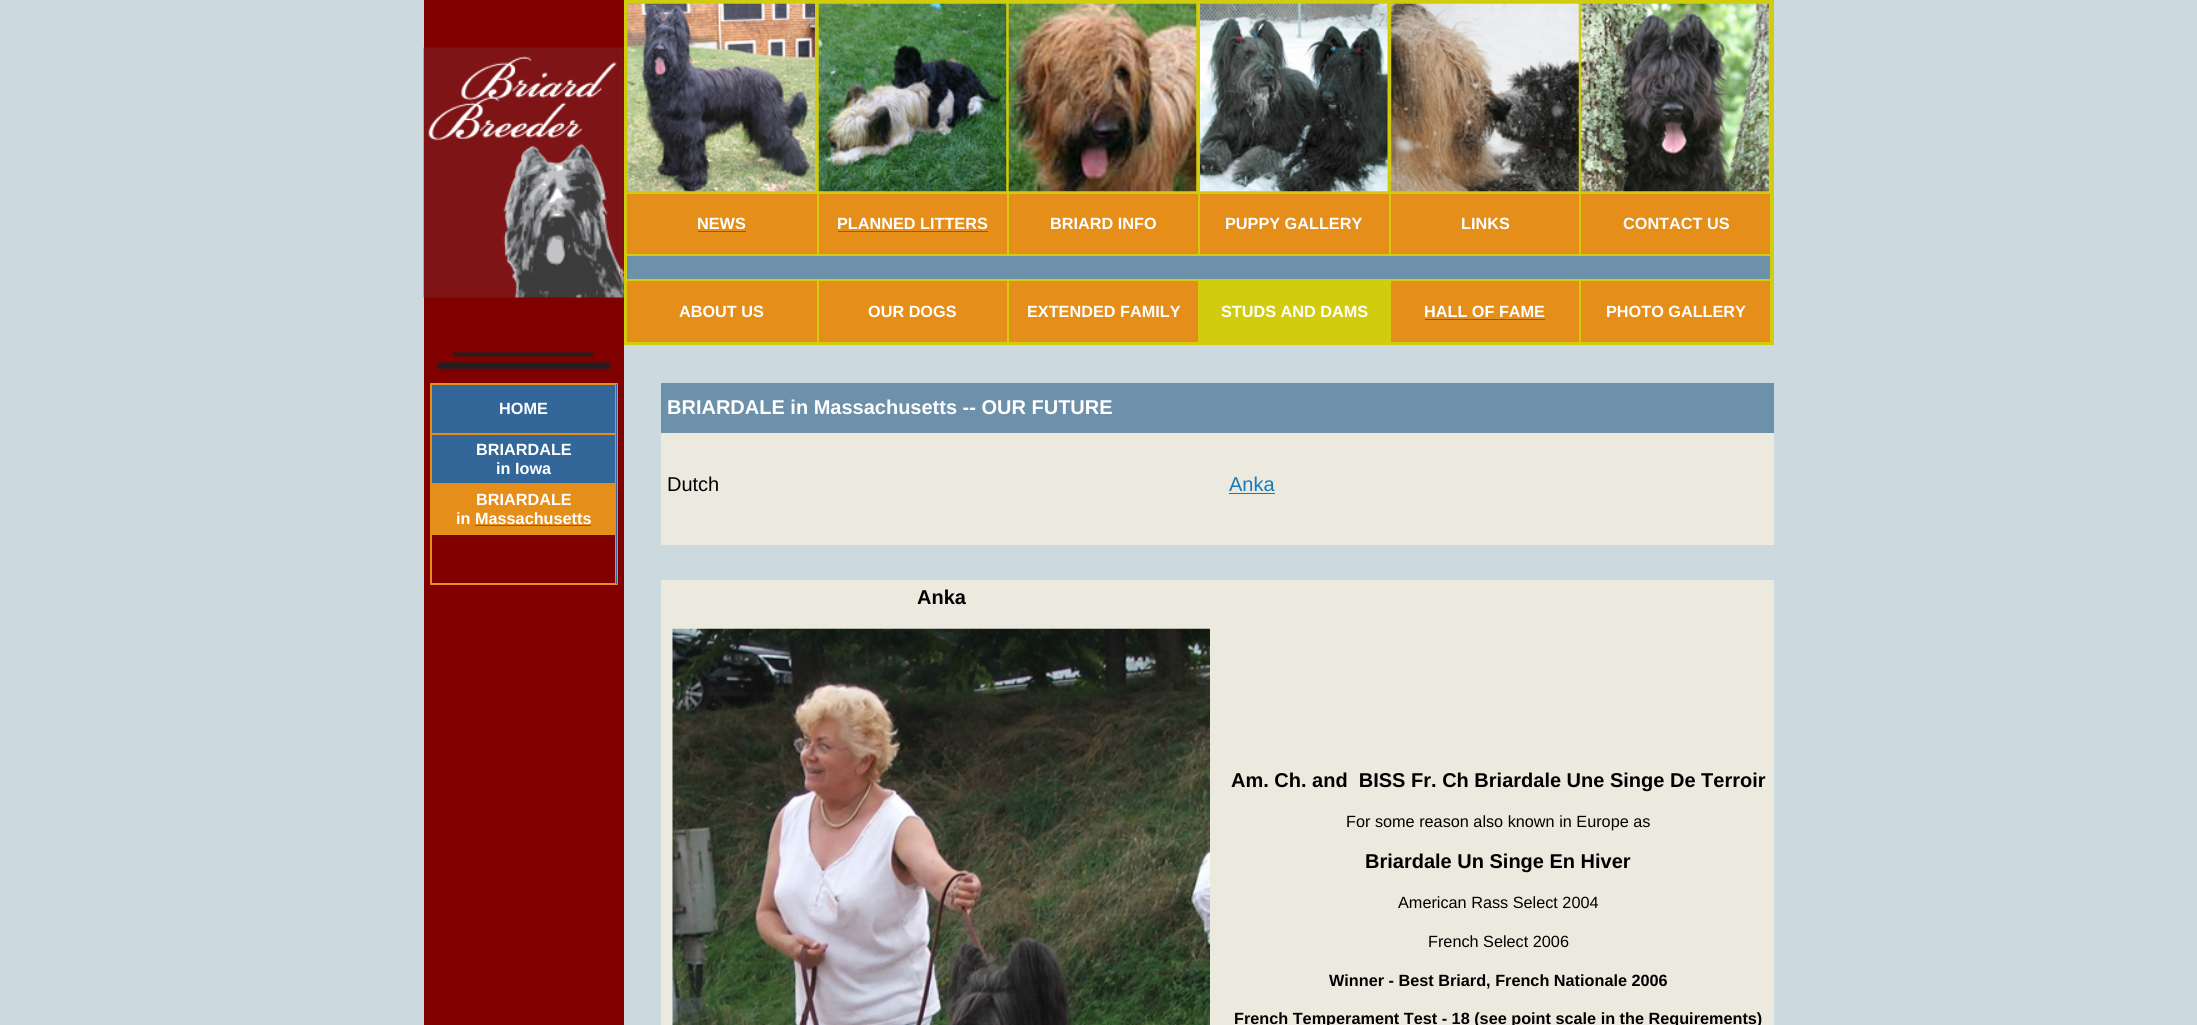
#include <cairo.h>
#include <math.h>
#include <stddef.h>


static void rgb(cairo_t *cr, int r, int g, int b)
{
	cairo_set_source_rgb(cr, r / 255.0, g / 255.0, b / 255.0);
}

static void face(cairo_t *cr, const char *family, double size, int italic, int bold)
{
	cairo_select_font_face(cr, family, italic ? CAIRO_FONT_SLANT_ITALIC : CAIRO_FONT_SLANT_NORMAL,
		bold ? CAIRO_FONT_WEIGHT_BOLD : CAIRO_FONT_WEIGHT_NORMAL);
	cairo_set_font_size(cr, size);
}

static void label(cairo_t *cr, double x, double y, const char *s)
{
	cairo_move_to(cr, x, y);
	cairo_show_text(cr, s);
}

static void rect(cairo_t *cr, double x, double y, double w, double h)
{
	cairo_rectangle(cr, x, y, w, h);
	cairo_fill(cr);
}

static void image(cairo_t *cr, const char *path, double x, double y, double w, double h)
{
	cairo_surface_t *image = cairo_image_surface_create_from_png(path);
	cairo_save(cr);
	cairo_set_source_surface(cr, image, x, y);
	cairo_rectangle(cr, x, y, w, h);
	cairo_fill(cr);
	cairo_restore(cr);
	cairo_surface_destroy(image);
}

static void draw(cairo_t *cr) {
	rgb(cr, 204, 217, 223);
	cairo_paint(cr);
	rgb(cr, 128, 0, 0);
	rect(cr, 424, 0, 200, 345);
	image(cr, "image0.png", 423, 47, 201, 251);
	cairo_rectangle(cr, 625.5, 1.5, 1147, 342);
	rgb(cr, 209, 204, 14);
	cairo_set_line_width(cr, 3);
	cairo_stroke(cr);
	rect(cr, 627, 3, 1144, 190);
	image(cr, "image1.png", 627, 3, 188, 189);
	image(cr, "image2.png", 818, 3, 189, 189);
	image(cr, "image3.png", 1008, 3, 189, 189);
	image(cr, "image4.png", 1200, 3, 188, 189);
	image(cr, "image5.png", 1391, 3, 188, 189);
	image(cr, "image6.png", 1581, 3, 188, 189);
	rgb(cr, 229, 142, 26);
	cairo_rectangle(cr, 626.5, 193.5, 191, 61);
	cairo_fill_preserve(cr);
	rgb(cr, 209, 204, 14);
	cairo_set_line_width(cr, 1);
	cairo_stroke(cr);
	face(cr, "Liberation Sans", 16.25, 0, 1);
	rgb(cr, 255, 255, 255);
	label(cr, 697, 229, "NEWS");
	rgb(cr, 17, 123, 188);
	rect(cr, 698, 231, 48, 1);
	rgb(cr, 229, 142, 26);
	cairo_rectangle(cr, 818.5, 193.5, 189, 61);
	cairo_fill_preserve(cr);
	rgb(cr, 209, 204, 14);
	cairo_stroke(cr);
	rgb(cr, 255, 255, 255);
	label(cr, 837, 229, "PLANNED LITTERS");
	rgb(cr, 17, 123, 188);
	rect(cr, 838, 231, 150, 1);
	rgb(cr, 229, 142, 26);
	cairo_rectangle(cr, 1008.5, 193.5, 190, 61);
	cairo_fill_preserve(cr);
	rgb(cr, 209, 204, 14);
	cairo_stroke(cr);
	rgb(cr, 255, 255, 255);
	label(cr, 1050, 229, "BRIARD INFO");
	rgb(cr, 229, 142, 26);
	cairo_rectangle(cr, 1199.5, 193.5, 190, 61);
	cairo_fill_preserve(cr);
	rgb(cr, 209, 204, 14);
	cairo_stroke(cr);
	rgb(cr, 255, 255, 255);
	label(cr, 1225, 229, "PUPPY GALLERY");
	rgb(cr, 229, 142, 26);
	cairo_rectangle(cr, 1390.5, 193.5, 189, 61);
	cairo_fill_preserve(cr);
	rgb(cr, 209, 204, 14);
	cairo_stroke(cr);
	rgb(cr, 255, 255, 255);
	label(cr, 1461, 229, "LINKS");
	rgb(cr, 229, 142, 26);
	cairo_rectangle(cr, 1580.5, 193.5, 190, 61);
	cairo_fill_preserve(cr);
	rgb(cr, 209, 204, 14);
	cairo_stroke(cr);
	rgb(cr, 255, 255, 255);
	label(cr, 1623, 229, "CONTACT US");
	rgb(cr, 109, 144, 171);
	cairo_rectangle(cr, 626.5, 255.5, 1144, 24);
	cairo_fill_preserve(cr);
	rgb(cr, 209, 204, 14);
	cairo_stroke(cr);
	rgb(cr, 229, 142, 26);
	cairo_rectangle(cr, 626.5, 280.5, 191, 62);
	cairo_fill_preserve(cr);
	rgb(cr, 209, 204, 14);
	cairo_stroke(cr);
	rgb(cr, 255, 255, 255);
	label(cr, 679, 317, "ABOUT US");
	rgb(cr, 229, 142, 26);
	cairo_rectangle(cr, 818.5, 280.5, 189, 62);
	cairo_fill_preserve(cr);
	rgb(cr, 209, 204, 14);
	cairo_stroke(cr);
	rgb(cr, 255, 255, 255);
	label(cr, 868, 317, "OUR DOGS");
	rgb(cr, 229, 142, 26);
	cairo_rectangle(cr, 1008.5, 280.5, 190, 62);
	cairo_fill_preserve(cr);
	rgb(cr, 209, 204, 14);
	cairo_stroke(cr);
	rgb(cr, 255, 255, 255);
	label(cr, 1027, 317, "EXTENDED FAMILY");
	rgb(cr, 209, 204, 14);
	rect(cr, 1199, 280, 191, 62);
	rgb(cr, 255, 255, 255);
	label(cr, 1221, 317, "STUDS AND DAMS");
	rgb(cr, 229, 142, 26);
	cairo_rectangle(cr, 1390.5, 280.5, 189, 62);
	cairo_fill_preserve(cr);
	rgb(cr, 209, 204, 14);
	cairo_stroke(cr);
	rgb(cr, 255, 255, 255);
	label(cr, 1424, 317, "HALL OF FAME");
	rgb(cr, 17, 123, 188);
	rect(cr, 1425, 319, 120, 1);
	rgb(cr, 229, 142, 26);
	cairo_rectangle(cr, 1580.5, 280.5, 190, 62);
	cairo_fill_preserve(cr);
	rgb(cr, 209, 204, 14);
	cairo_stroke(cr);
	rgb(cr, 255, 255, 255);
	label(cr, 1606, 317, "PHOTO GALLERY");
	rgb(cr, 128, 0, 0);
	rect(cr, 424, 345, 200, 680);
	rgb(cr, 109, 144, 171);
	rect(cr, 661, 383, 1113, 50);
	face(cr, "Liberation Sans", 20, 0, 1);
	rgb(cr, 255, 255, 255);
	label(cr, 667, 414, "BRIARDALE in Massachusetts -- OUR FUTURE");
	rgb(cr, 236, 234, 223);
	rect(cr, 661, 433, 1113, 35);
	rect(cr, 661, 468, 1113, 77);
	face(cr, "Liberation Sans", 20, 0, 0);
	rgb(cr, 0, 0, 0);
	label(cr, 667, 491, "Dutch");
	rgb(cr, 17, 123, 188);
	label(cr, 1229, 491, "Anka");
	rect(cr, 1229, 493, 46, 1);
	rgb(cr, 236, 234, 223);
	rect(cr, 661, 580, 1113, 445);
	face(cr, "Liberation Sans", 20, 0, 1);
	rgb(cr, 0, 0, 0);
	label(cr, 917, 604, "Anka");
	image(cr, "image7.png", 672, 628, 538, 397);
	label(cr, 1231, 787, "Am. Ch. and  BISS Fr. Ch Briardale Une Singe De Terroir");
	face(cr, "Liberation Sans", 16.25, 0, 0);
	label(cr, 1346, 827, "For some reason also known in Europe as");
	face(cr, "Liberation Sans", 20, 0, 1);
	label(cr, 1365, 868, "Briardale Un Singe En Hiver");
	face(cr, "Liberation Sans", 16.25, 0, 0);
	label(cr, 1398, 908, "American Rass Select 2004");
	label(cr, 1428, 947, "French Select 2006");
	face(cr, "Liberation Sans", 16.25, 0, 1);
	label(cr, 1329, 986, "Winner - Best Briard, French Nationale 2006");
	label(cr, 1234, 1024, "French Temperament Test - 18 (see point scale in the Requirements)");
	image(cr, "image8.png", 437, 352, 174, 17);
	rgb(cr, 51, 102, 153);
	rect(cr, 432, 384, 185, 200);
	cairo_rectangle(cr, 430.5, 383.5, 187, 201);
	rgb(cr, 229, 142, 26);
	cairo_stroke(cr);
	cairo_rectangle(cr, 431.5, 384.5, 184, 49);
	cairo_stroke(cr);
	rgb(cr, 255, 255, 255);
	label(cr, 499, 414, "HOME");
	cairo_rectangle(cr, 431.5, 434.5, 184, 49);
	rgb(cr, 229, 142, 26);
	cairo_stroke(cr);
	rgb(cr, 255, 255, 255);
	label(cr, 476, 455, "BRIARDALE");
	label(cr, 496, 474, "in Iowa");
	rgb(cr, 229, 142, 26);
	rect(cr, 431, 484, 185, 50);
	rgb(cr, 255, 255, 255);
	label(cr, 476, 505, "BRIARDALE");
	label(cr, 456, 524, "in Massachusetts");
	rgb(cr, 17, 123, 188);
	rect(cr, 475, 525, 116, 1);
	rgb(cr, 128, 0, 0);
	cairo_rectangle(cr, 431.5, 534.5, 184, 49);
	cairo_fill_preserve(cr);
	rgb(cr, 229, 142, 26);
	cairo_stroke(cr);
}

int main(void) {
	cairo_surface_t *surface = cairo_image_surface_create(CAIRO_FORMAT_RGB24, 2197, 1025);
	cairo_t *cr = cairo_create(surface);
	cairo_font_options_t *options = cairo_font_options_create();
	cairo_font_options_set_hint_metrics(options, CAIRO_HINT_METRICS_OFF);
	cairo_font_options_set_hint_style(options, CAIRO_HINT_STYLE_NONE);
	cairo_set_font_options(cr, options);
	cairo_set_miter_limit(cr, 4);
	draw(cr);
	cairo_surface_write_to_png(surface, "render.png");
	cairo_font_options_destroy(options);
	cairo_destroy(cr);
	cairo_surface_destroy(surface);
	return 0;
}
